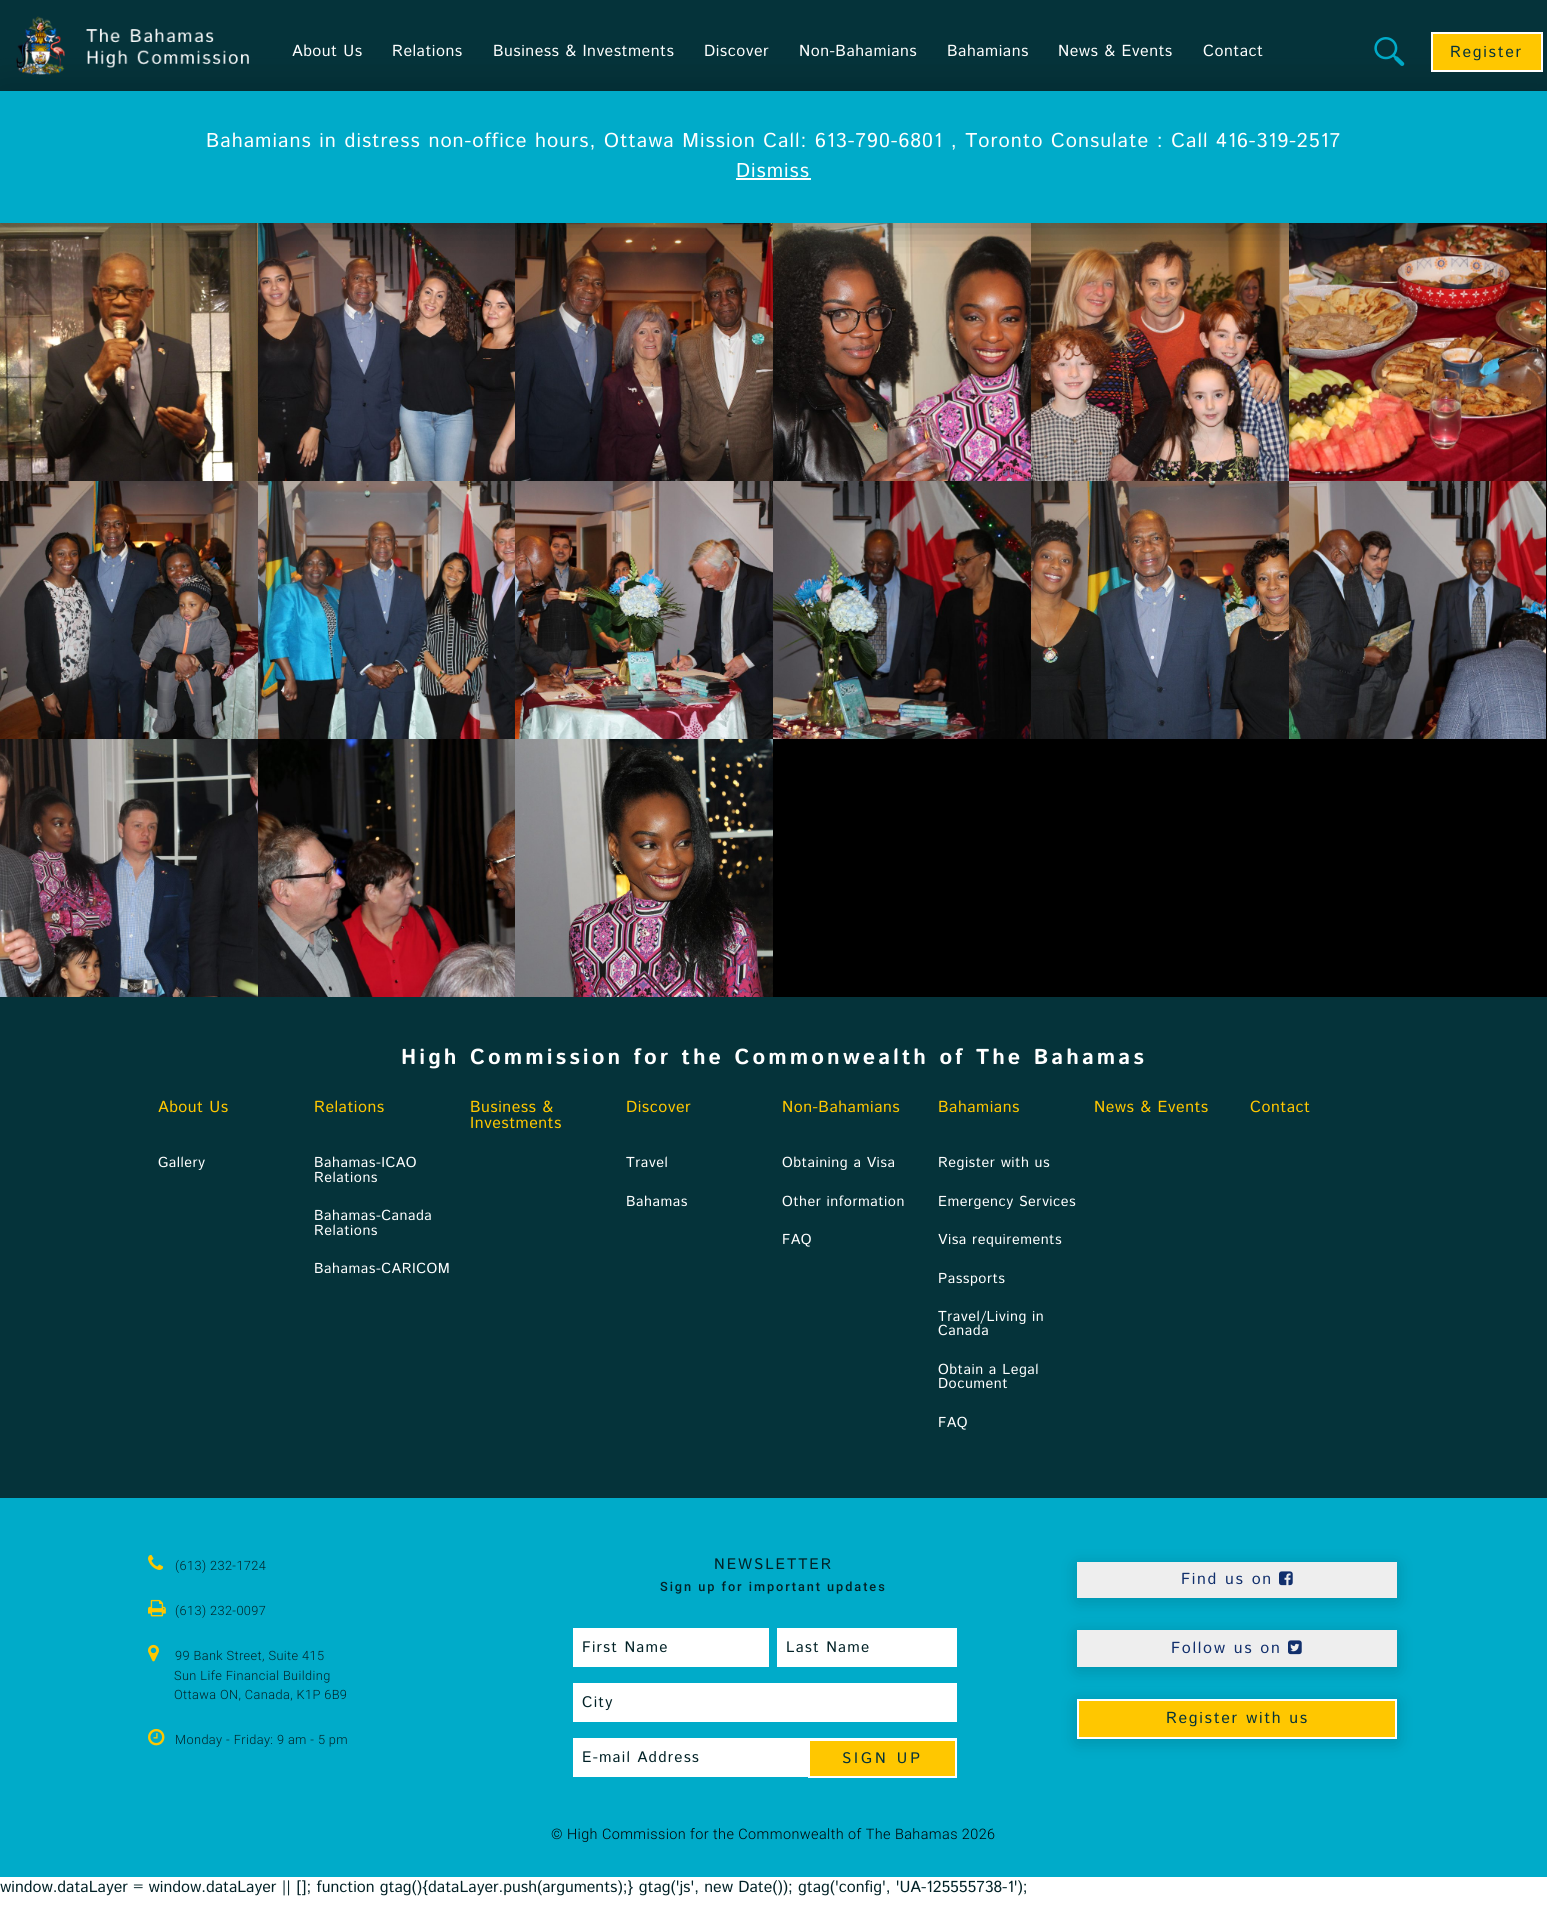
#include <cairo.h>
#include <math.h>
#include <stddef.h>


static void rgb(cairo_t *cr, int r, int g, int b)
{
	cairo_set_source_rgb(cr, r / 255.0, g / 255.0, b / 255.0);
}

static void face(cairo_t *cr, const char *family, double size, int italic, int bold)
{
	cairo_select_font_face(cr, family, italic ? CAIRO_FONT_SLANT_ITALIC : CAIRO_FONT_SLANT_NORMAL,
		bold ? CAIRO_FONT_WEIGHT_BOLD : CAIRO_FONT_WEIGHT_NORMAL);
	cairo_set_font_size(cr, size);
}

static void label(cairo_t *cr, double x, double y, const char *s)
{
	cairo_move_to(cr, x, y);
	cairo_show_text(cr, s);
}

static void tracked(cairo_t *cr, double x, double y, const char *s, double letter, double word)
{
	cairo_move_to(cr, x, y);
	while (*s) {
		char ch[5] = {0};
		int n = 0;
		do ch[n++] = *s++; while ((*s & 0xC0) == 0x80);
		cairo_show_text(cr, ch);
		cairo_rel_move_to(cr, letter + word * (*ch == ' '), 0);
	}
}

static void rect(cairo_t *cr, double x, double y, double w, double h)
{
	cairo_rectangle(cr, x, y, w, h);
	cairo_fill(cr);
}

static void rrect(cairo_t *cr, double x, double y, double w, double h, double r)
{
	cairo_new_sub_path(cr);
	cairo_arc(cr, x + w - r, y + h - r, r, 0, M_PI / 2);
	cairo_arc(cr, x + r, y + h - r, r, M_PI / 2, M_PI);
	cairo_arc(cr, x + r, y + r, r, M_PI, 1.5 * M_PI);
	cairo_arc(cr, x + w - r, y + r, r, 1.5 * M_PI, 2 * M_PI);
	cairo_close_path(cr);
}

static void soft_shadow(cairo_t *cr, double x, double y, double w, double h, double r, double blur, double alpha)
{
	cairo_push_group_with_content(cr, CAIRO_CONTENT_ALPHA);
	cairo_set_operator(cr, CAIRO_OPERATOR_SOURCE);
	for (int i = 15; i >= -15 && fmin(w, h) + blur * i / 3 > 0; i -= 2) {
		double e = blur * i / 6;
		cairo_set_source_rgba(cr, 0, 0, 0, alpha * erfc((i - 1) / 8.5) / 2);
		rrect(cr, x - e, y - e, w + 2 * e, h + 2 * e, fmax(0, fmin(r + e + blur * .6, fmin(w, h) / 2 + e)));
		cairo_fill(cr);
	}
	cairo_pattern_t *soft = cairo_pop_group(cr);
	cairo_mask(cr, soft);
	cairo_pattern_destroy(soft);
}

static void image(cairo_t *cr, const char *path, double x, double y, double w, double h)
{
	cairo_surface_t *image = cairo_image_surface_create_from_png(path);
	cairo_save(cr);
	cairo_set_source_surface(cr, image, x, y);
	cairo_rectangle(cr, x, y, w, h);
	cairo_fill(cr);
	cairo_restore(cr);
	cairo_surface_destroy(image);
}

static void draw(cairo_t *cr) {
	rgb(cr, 255, 255, 255);
	cairo_paint(cr);
	rgb(cr, 5, 51, 58);
	rect(cr, 0, 0, 1547, 91);
	image(cr, "image0.png", 16, 16, 233, 59);
	face(cr, "Istok Web", 16, 0, 0);
	rgb(cr, 255, 255, 255);
	tracked(cr, 292, 56, "About Us", 0.5, 0);
	tracked(cr, 392, 56, "Relations", 0.5, 0);
	tracked(cr, 493, 56, "Business & Investments", 0.5, 0);
	tracked(cr, 704, 56, "Discover", 0.5, 0);
	tracked(cr, 799, 56, "Non-Bahamians", 0.5, 0);
	tracked(cr, 947, 56, "Bahamians", 0.5, 0);
	tracked(cr, 1058, 56, "News & Events", 0.5, 0);
	tracked(cr, 1203, 56, "Contact", 0.5, 0);
	image(cr, "image1.png", 1374, 37, 31, 29);
	rgb(cr, 0, 0, 0);
	rect(cr, 773, 223, 774, 774);
	image(cr, "image2.png", 0, 223, 258, 258);
	image(cr, "image3.png", 258, 223, 257, 258);
	image(cr, "image4.png", 515, 223, 258, 258);
	image(cr, "image5.png", 773, 223, 258, 258);
	image(cr, "image6.png", 1031, 223, 258, 258);
	image(cr, "image7.png", 1289, 223, 257, 258);
	rgb(cr, 0, 28, 33);
	soft_shadow(cr, 0, 93, 1547, 132, 0, 19, 0.48);
	rgb(cr, 255, 199, 0);
	rect(cr, 1433, 34, 108, 36);
	rgb(cr, 255, 255, 255);
	rect(cr, 1431, 70, 112, 2);
	rect(cr, 1431, 32, 112, 2);
	rect(cr, 1541, 32, 2, 38);
	rect(cr, 1431, 32, 2, 38);
	rgb(cr, 5, 51, 58);
	tracked(cr, 1450, 57, "Register", 1.7, 0);
	rgb(cr, 0, 171, 201);
	rect(cr, 0, 91, 1547, 132);
	face(cr, "Istok Web", 20, 0, 0);
	rgb(cr, 255, 255, 255);
	tracked(cr, 206, 147, "Bahamians in distress non-office hours, Ottawa Mission Call: 613-790-6801 , Toronto Consulate : Call 416-319-2517", 1, 0);
	tracked(cr, 736, 177, "Dismiss", 1, 0);
	rect(cr, 736, 178, 75, 2);
	image(cr, "image8.png", 0, 481, 258, 258);
	image(cr, "image9.png", 258, 481, 257, 258);
	image(cr, "image10.png", 515, 481, 258, 258);
	image(cr, "image11.png", 773, 481, 258, 258);
	image(cr, "image12.png", 1031, 481, 258, 258);
	image(cr, "image13.png", 1289, 481, 257, 258);
	image(cr, "image14.png", 0, 739, 258, 258);
	image(cr, "image15.png", 258, 739, 257, 258);
	image(cr, "image16.png", 515, 739, 258, 258);
	rgb(cr, 5, 51, 58);
	rect(cr, 0, 997, 1547, 501);
	face(cr, "Istok Web", 21.6, 0, 1);
	rgb(cr, 255, 255, 255);
	tracked(cr, 401, 1064, "High Commission for the Commonwealth of The Bahamas", 3.05, 0);
	face(cr, "Istok Web", 16, 0, 0);
	rgb(cr, 255, 199, 0);
	tracked(cr, 158, 1112, "About Us", 0.5, 0);
	face(cr, "Istok Web", 14.4, 0, 0);
	rgb(cr, 255, 255, 255);
	tracked(cr, 158, 1167, "Gallery", 0.5, 0);
	face(cr, "Istok Web", 16, 0, 0);
	rgb(cr, 255, 199, 0);
	tracked(cr, 314, 1112, "Relations", 0.5, 0);
	face(cr, "Istok Web", 14.4, 0, 0);
	rgb(cr, 255, 255, 255);
	tracked(cr, 314, 1167, "Bahamas-ICAO", 0.5, 0);
	tracked(cr, 314, 1182, "Relations", 0.5, 0);
	tracked(cr, 314, 1220, "Bahamas-Canada", 0.5, 0);
	tracked(cr, 314, 1235, "Relations", 0.5, 0);
	tracked(cr, 314, 1273, "Bahamas-CARICOM", 0.5, 0);
	face(cr, "Istok Web", 16, 0, 0);
	rgb(cr, 255, 199, 0);
	tracked(cr, 470, 1112, "Business &", 0.5, 0);
	tracked(cr, 470, 1128, "Investments", 0.5, 0);
	tracked(cr, 626, 1112, "Discover", 0.5, 0);
	face(cr, "Istok Web", 14.4, 0, 0);
	rgb(cr, 255, 255, 255);
	tracked(cr, 626, 1167, "Travel", 0.5, 0);
	tracked(cr, 626, 1206, "Bahamas", 0.5, 0);
	face(cr, "Istok Web", 16, 0, 0);
	rgb(cr, 255, 199, 0);
	tracked(cr, 782, 1112, "Non-Bahamians", 0.5, 0);
	face(cr, "Istok Web", 14.4, 0, 0);
	rgb(cr, 255, 255, 255);
	tracked(cr, 782, 1167, "Obtaining a Visa", 0.5, 0);
	tracked(cr, 782, 1206, "Other information", 0.5, 0);
	tracked(cr, 782, 1244, "FAQ", 0.5, 0);
	face(cr, "Istok Web", 16, 0, 0);
	rgb(cr, 255, 199, 0);
	tracked(cr, 938, 1112, "Bahamians", 0.5, 0);
	face(cr, "Istok Web", 14.4, 0, 0);
	rgb(cr, 255, 255, 255);
	tracked(cr, 938, 1167, "Register with us", 0.5, 0);
	tracked(cr, 938, 1206, "Emergency Services", 0.5, 0);
	tracked(cr, 938, 1244, "Visa requirements", 0.5, 0);
	tracked(cr, 938, 1283, "Passports", 0.5, 0);
	tracked(cr, 938, 1321, "Travel/Living in", 0.5, 0);
	tracked(cr, 938, 1335, "Canada", 0.5, 0);
	tracked(cr, 938, 1374, "Obtain a Legal", 0.5, 0);
	tracked(cr, 938, 1388, "Document", 0.5, 0);
	tracked(cr, 938, 1427, "FAQ", 0.5, 0);
	face(cr, "Istok Web", 16, 0, 0);
	rgb(cr, 255, 199, 0);
	tracked(cr, 1094, 1112, "News & Events", 0.5, 0);
	tracked(cr, 1250, 1112, "Contact", 0.5, 0);
	rgb(cr, 0, 171, 201);
	rect(cr, 0, 1498, 1547, 379);
	image(cr, "image17.png", 148, 1554, 16, 16);
	face(cr, "Roboto Light", 12.75, 0, 0);
	rgb(cr, 2, 34, 39);
	tracked(cr, 175, 1570, "(613) 232-1724", 0.4, 0);
	image(cr, "image18.png", 148, 1599, 18, 18);
	tracked(cr, 175, 1615, "(613) 232-0097", 0.4, 0);
	image(cr, "image19.png", 148, 1644, 11, 18);
	tracked(cr, 175, 1660, "99 Bank Street, Suite 415", 0.4, 0);
	tracked(cr, 174, 1680, "Sun Life Financial Building", 0.4, 0);
	tracked(cr, 174, 1699, "Ottawa ON, Canada, K1P 6B9", 0.4, 0);
	image(cr, "image20.png", 148, 1728, 17, 18);
	tracked(cr, 175, 1744, "Monday - Friday: 9 am - 5 pm", 0.4, 0);
	face(cr, "Istok Web", 15.25, 0, 0);
	tracked(cr, 714, 1569, "NEWSLETTER", 1.95, 0);
	face(cr, "Roboto Medium", 12.75, 0, 0);
	tracked(cr, 660, 1591, "Sign up for important updates", 1.95, 0);
	rgb(cr, 255, 255, 255);
	rect(cr, 573, 1628, 196, 39);
	face(cr, "Istok Web", 15.25, 0, 0);
	rgb(cr, 2, 34, 39);
	tracked(cr, 582, 1652, "First Name", 1.2, 0);
	rgb(cr, 255, 255, 255);
	rect(cr, 777, 1628, 180, 39);
	rgb(cr, 2, 34, 39);
	tracked(cr, 786, 1652, "Last Name", 1.2, 0);
	rgb(cr, 255, 255, 255);
	rect(cr, 573, 1683, 384, 39);
	rgb(cr, 2, 34, 39);
	tracked(cr, 582, 1707, "City", 1.2, 0);
	rgb(cr, 255, 255, 255);
	rect(cr, 573, 1738, 384, 39);
	rgb(cr, 2, 34, 39);
	tracked(cr, 582, 1762, "E-mail Address", 1.2, 0);
	rgb(cr, 255, 199, 0);
	cairo_rectangle(cr, 809, 1740, 147, 37);
	cairo_fill_preserve(cr);
	rgb(cr, 255, 255, 255);
	cairo_stroke(cr);
	rgb(cr, 5, 51, 58);
	tracked(cr, 842, 1763, "SIGN UP", 3, 0);
	rgb(cr, 0, 0, 0);
	soft_shadow(cr, 1077, 1565, 320, 36, 0, 9, 0.16);
	rgb(cr, 238, 238, 238);
	rect(cr, 1077, 1562, 320, 36);
	face(cr, "Istok Web", 16, 0, 0);
	rgb(cr, 17, 47, 108);
	tracked(cr, 1181, 1584, "Find us on", 1.7, 0);
	image(cr, "image21.png", 1279, 1571, 14, 15);
	rgb(cr, 0, 0, 0);
	soft_shadow(cr, 1077, 1633, 320, 37, 0, 9, 0.16);
	rgb(cr, 238, 238, 238);
	rect(cr, 1077, 1630, 320, 37);
	rgb(cr, 17, 47, 108);
	tracked(cr, 1171, 1653, "Follow us on", 1.7, 0);
	image(cr, "image22.png", 1288, 1640, 14, 15);
	rgb(cr, 0, 0, 0);
	soft_shadow(cr, 1077, 1702, 320, 40, 0, 9, 0.16);
	rgb(cr, 255, 199, 0);
	cairo_rectangle(cr, 1078, 1700, 318, 38);
	cairo_fill_preserve(cr);
	rgb(cr, 255, 255, 255);
	cairo_stroke(cr);
	rgb(cr, 5, 51, 58);
	tracked(cr, 1166, 1723, "Register with us", 1.7, 0);
	face(cr, "Roboto Light", 14.4, 0, 0);
	rgb(cr, 0, 0, 0);
	tracked(cr, 551, 1839, "© High Commission for the Commonwealth of The Bahamas 2026", 0.43, 0);
	face(cr, "Istok Web", 16, 0, 0);
	rgb(cr, 2, 34, 39);
	label(cr, 0, 1892, "window.dataLayer = window.dataLayer || []; function gtag(){dataLayer.push(arguments);} gtag('js', new Date()); gtag('config', 'UA-125555738-1');");
}

int main(void) {
	cairo_surface_t *surface = cairo_image_surface_create(CAIRO_FORMAT_RGB24, 1547, 1913);
	cairo_t *cr = cairo_create(surface);
	cairo_font_options_t *options = cairo_font_options_create();
	cairo_font_options_set_hint_metrics(options, CAIRO_HINT_METRICS_OFF);
	cairo_font_options_set_hint_style(options, CAIRO_HINT_STYLE_NONE);
	cairo_set_font_options(cr, options);
	cairo_set_miter_limit(cr, 4);
	draw(cr);
	cairo_surface_write_to_png(surface, "render.png");
	cairo_font_options_destroy(options);
	cairo_destroy(cr);
	cairo_surface_destroy(surface);
	return 0;
}
